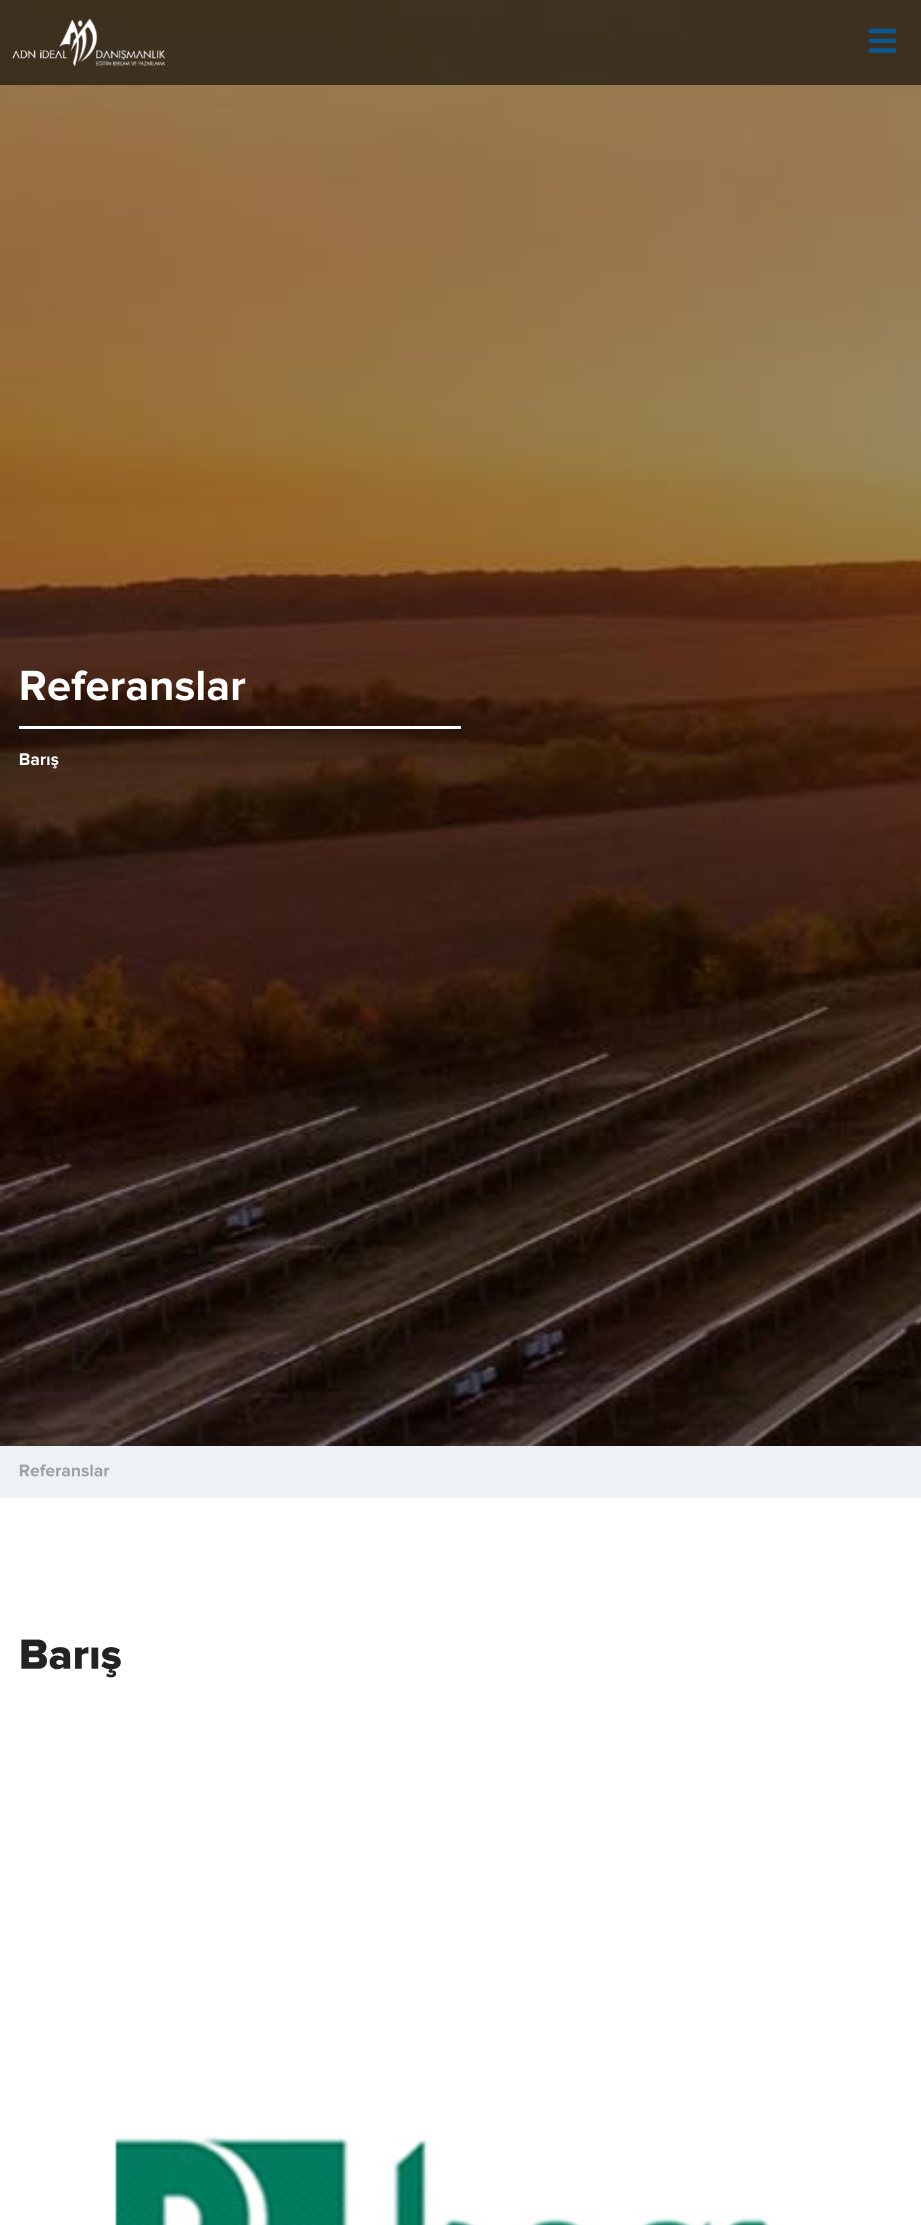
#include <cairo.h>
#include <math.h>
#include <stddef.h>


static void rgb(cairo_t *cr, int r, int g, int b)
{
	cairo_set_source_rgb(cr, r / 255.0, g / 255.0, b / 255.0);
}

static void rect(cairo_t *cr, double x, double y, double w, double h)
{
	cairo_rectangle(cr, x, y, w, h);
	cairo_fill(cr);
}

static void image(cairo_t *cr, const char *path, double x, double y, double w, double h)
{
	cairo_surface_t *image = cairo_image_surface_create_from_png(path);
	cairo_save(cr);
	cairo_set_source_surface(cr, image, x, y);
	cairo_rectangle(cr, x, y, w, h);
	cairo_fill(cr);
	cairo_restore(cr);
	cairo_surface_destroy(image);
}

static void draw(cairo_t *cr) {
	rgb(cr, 255, 255, 255);
	cairo_paint(cr);
	image(cr, "image0.png", 0, 0, 921, 1446);
	image(cr, "image1.png", 21, 670, 225, 31);
	rgb(cr, 255, 255, 255);
	rect(cr, 19, 726, 442, 3);
	image(cr, "image2.png", 19, 753, 40, 16);
	cairo_set_source_rgba(cr, 0, 0, 0, 0.6);
	rect(cr, 0, 0, 921, 85);
	image(cr, "image3.png", 12, 18, 153, 49);
	image(cr, "image4.png", 868, 28, 29, 25);
	rgb(cr, 237, 242, 246);
	rect(cr, 0, 1446, 921, 52);
	image(cr, "image5.png", 19, 1464, 91, 13);
	image(cr, "image6.png", 21, 1639, 100, 39);
	image(cr, "image7.png", 115, 2136, 654, 89);
}

int main(void) {
	cairo_surface_t *surface = cairo_image_surface_create(CAIRO_FORMAT_RGB24, 921, 2225);
	cairo_t *cr = cairo_create(surface);
	cairo_font_options_t *options = cairo_font_options_create();
	cairo_font_options_set_hint_metrics(options, CAIRO_HINT_METRICS_OFF);
	cairo_font_options_set_hint_style(options, CAIRO_HINT_STYLE_NONE);
	cairo_set_font_options(cr, options);
	cairo_set_miter_limit(cr, 4);
	draw(cr);
	cairo_surface_write_to_png(surface, "render.png");
	cairo_font_options_destroy(options);
	cairo_destroy(cr);
	cairo_surface_destroy(surface);
	return 0;
}
